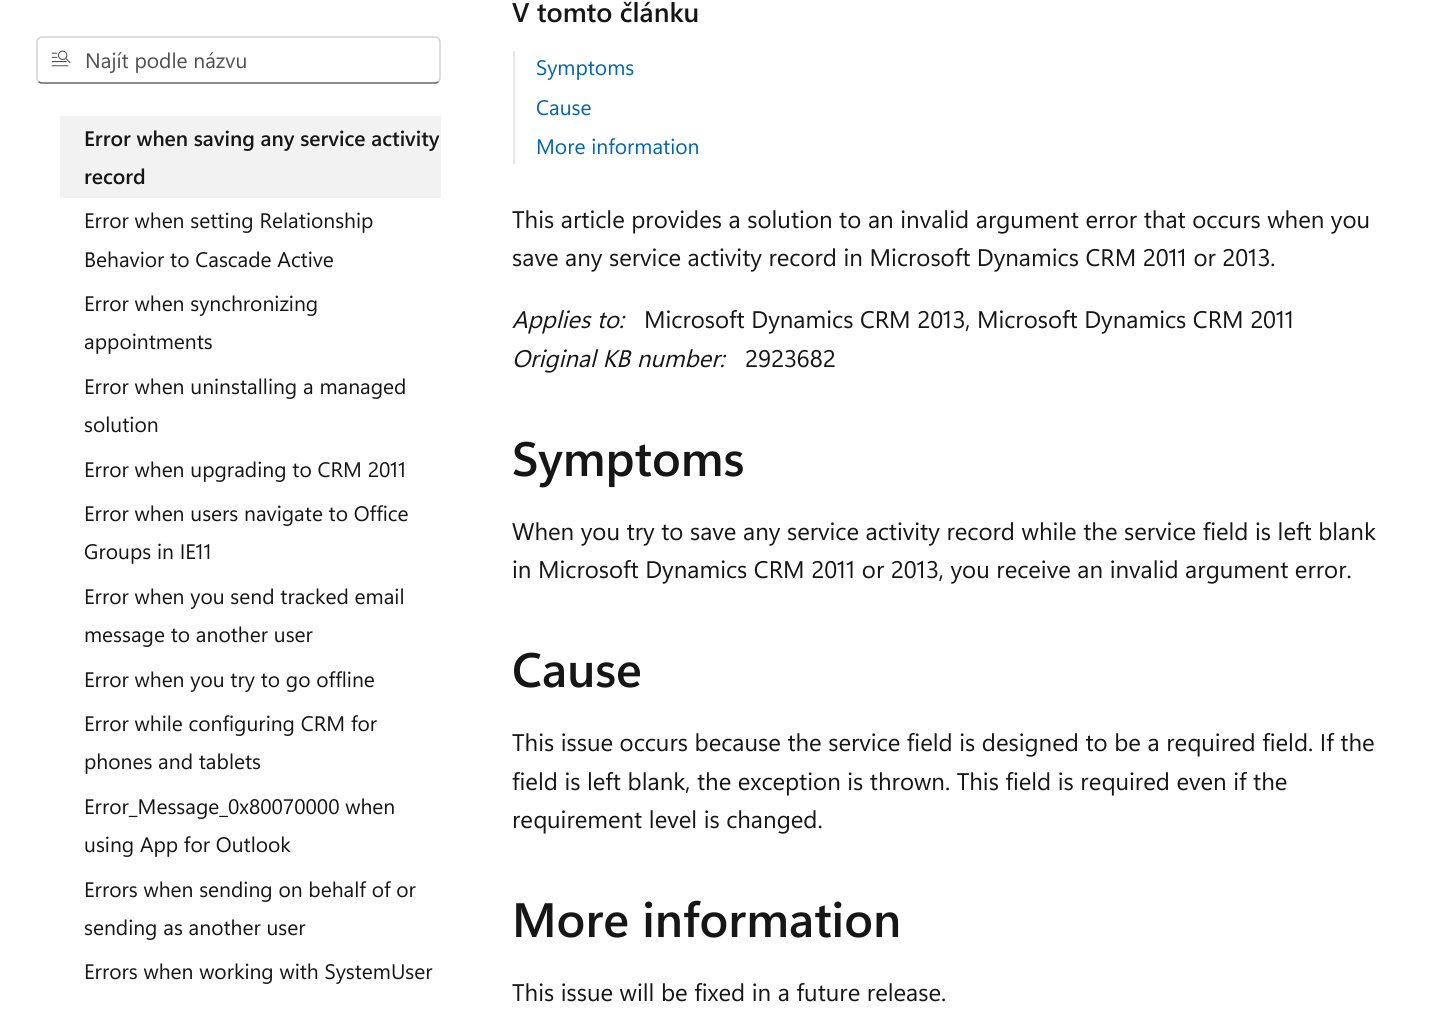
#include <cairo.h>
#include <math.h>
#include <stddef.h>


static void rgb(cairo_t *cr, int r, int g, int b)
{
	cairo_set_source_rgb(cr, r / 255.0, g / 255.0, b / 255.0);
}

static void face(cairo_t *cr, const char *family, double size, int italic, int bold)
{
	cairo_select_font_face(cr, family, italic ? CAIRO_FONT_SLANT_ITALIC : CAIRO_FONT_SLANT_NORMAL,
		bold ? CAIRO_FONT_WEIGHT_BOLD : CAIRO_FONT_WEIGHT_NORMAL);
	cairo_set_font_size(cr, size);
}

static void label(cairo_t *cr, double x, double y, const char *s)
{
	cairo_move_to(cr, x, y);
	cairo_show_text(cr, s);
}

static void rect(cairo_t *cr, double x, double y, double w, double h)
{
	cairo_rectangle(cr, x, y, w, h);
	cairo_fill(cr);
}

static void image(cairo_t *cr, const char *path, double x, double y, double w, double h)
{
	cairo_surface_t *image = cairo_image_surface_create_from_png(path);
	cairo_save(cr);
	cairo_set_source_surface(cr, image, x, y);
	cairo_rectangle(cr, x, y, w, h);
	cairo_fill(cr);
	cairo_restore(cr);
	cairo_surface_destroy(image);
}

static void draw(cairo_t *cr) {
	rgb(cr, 255, 255, 255);
	cairo_paint(cr);
	cairo_new_path(cr);
	cairo_move_to(cr, 438.5, 81.5);
	cairo_curve_to(cr, 437.5, 82.5, 436.5, 83, 435, 83);
	cairo_line_to(cr, 42, 83);
	cairo_curve_to(cr, 40.5, 83, 39.5, 82.5, 38.5, 81.5);
	rgb(cr, 97, 97, 97);
	cairo_set_line_width(cr, 1.5);
	cairo_stroke(cr);
	cairo_new_path(cr);
	cairo_move_to(cr, 38.5, 81.5);
	cairo_curve_to(cr, 37.5, 80.5, 37, 79.5, 37, 78);
	cairo_line_to(cr, 37, 42);
	cairo_curve_to(cr, 37, 40.5, 37.5, 39.5, 38.5, 38.5);
	cairo_curve_to(cr, 39.5, 37.5, 40.5, 37, 42, 37);
	cairo_line_to(cr, 435, 37);
	cairo_curve_to(cr, 436.5, 37, 437.5, 37.5, 438.5, 38.5);
	cairo_curve_to(cr, 439.5, 39.5, 440, 40.5, 440, 42);
	cairo_line_to(cr, 440, 78);
	cairo_curve_to(cr, 440, 79.5, 439.5, 80.5, 438.5, 81.5);
	rgb(cr, 209, 209, 209);
	cairo_stroke(cr);
	image(cr, "image0.png", 51, 50, 20, 17);
	face(cr, "Segoe UI", 21, 0, 0);
	rgb(cr, 80, 80, 80);
	label(cr, 85, 68, "Najít podle názvu");
	rgb(cr, 242, 242, 242);
	rect(cr, 60, 116, 381, 82);
	face(cr, "Segoe UI SemiBold", 21, 0, 0);
	rgb(cr, 22, 22, 22);
	label(cr, 84, 146, "Error when saving any service activity");
	label(cr, 84, 184, "record");
	face(cr, "Segoe UI", 21, 0, 0);
	label(cr, 84, 228, "Error when setting Relationship");
	label(cr, 84, 267, "Behavior to Cascade Active");
	label(cr, 84, 311, "Error when synchronizing");
	label(cr, 84, 349, "appointments");
	label(cr, 84, 394, "Error when uninstalling a managed");
	label(cr, 84, 432, "solution");
	label(cr, 84, 477, "Error when upgrading to CRM 2011");
	label(cr, 84, 521, "Error when users navigate to Office");
	label(cr, 84, 559, "Groups in IE11");
	label(cr, 84, 604, "Error when you send tracked email");
	label(cr, 84, 642, "message to another user");
	label(cr, 84, 687, "Error when you try to go offline");
	label(cr, 84, 731, "Error while configuring CRM for");
	label(cr, 84, 769, "phones and tablets");
	label(cr, 84, 814, "Error_Message_0x80070000 when");
	label(cr, 84, 852, "using App for Outlook");
	label(cr, 84, 897, "Errors when sending on behalf of or");
	label(cr, 84, 935, "sending as another user");
	label(cr, 84, 979, "Errors when working with SystemUser");
	face(cr, "Segoe UI SemiBold", 27, 0, 0);
	label(cr, 512, 22, "V tomto článku");
	rgb(cr, 230, 230, 230);
	rect(cr, 513, 51, 2, 113);
	face(cr, "Segoe UI", 21, 0, 0);
	rgb(cr, 0, 101, 179);
	label(cr, 536, 75, "Symptoms");
	label(cr, 536, 115, "Cause");
	label(cr, 536, 154, "More information");
	face(cr, "Segoe UI", 24, 0, 0);
	rgb(cr, 22, 22, 22);
	label(cr, 512, 228, "This article provides a solution to an invalid argument error that occurs when you");
	label(cr, 512, 266, "save any service activity record in Microsoft Dynamics CRM 2011 or 2013.");
	face(cr, "Segoe UI", 24, 1, 0);
	label(cr, 512, 328, "Applies to:");
	face(cr, "Segoe UI", 24, 0, 0);
	label(cr, 644, 328, "Microsoft Dynamics CRM 2013, Microsoft Dynamics CRM 2011");
	face(cr, "Segoe UI", 24, 1, 0);
	label(cr, 512, 367, "Original KB number:");
	face(cr, "Segoe UI", 24, 0, 0);
	label(cr, 745, 367, "2923682");
	face(cr, "Segoe UI SemiBold", 48.25, 0, 0);
	label(cr, 512, 476, "Symptoms");
	face(cr, "Segoe UI", 24, 0, 0);
	label(cr, 512, 540, "When you try to save any service activity record while the service field is left blank");
	label(cr, 512, 578, "in Microsoft Dynamics CRM 2011 or 2013, you receive an invalid argument error.");
	face(cr, "Segoe UI SemiBold", 48.25, 0, 0);
	label(cr, 512, 687, "Cause");
	face(cr, "Segoe UI", 24, 0, 0);
	label(cr, 512, 751, "This issue occurs because the service field is designed to be a required field. If the");
	label(cr, 512, 790, "field is left blank, the exception is thrown. This field is required even if the");
	label(cr, 512, 828, "requirement level is changed.");
	face(cr, "Segoe UI SemiBold", 48.25, 0, 0);
	label(cr, 512, 937, "More information");
	face(cr, "Segoe UI", 24, 0, 0);
	label(cr, 512, 1001, "This issue will be fixed in a future release.");
}

int main(void) {
	cairo_surface_t *surface = cairo_image_surface_create(CAIRO_FORMAT_RGB24, 1429, 1036);
	cairo_t *cr = cairo_create(surface);
	cairo_font_options_t *options = cairo_font_options_create();
	cairo_font_options_set_hint_metrics(options, CAIRO_HINT_METRICS_OFF);
	cairo_font_options_set_hint_style(options, CAIRO_HINT_STYLE_NONE);
	cairo_set_font_options(cr, options);
	cairo_set_miter_limit(cr, 4);
	draw(cr);
	cairo_surface_write_to_png(surface, "render.png");
	cairo_font_options_destroy(options);
	cairo_destroy(cr);
	cairo_surface_destroy(surface);
	return 0;
}
